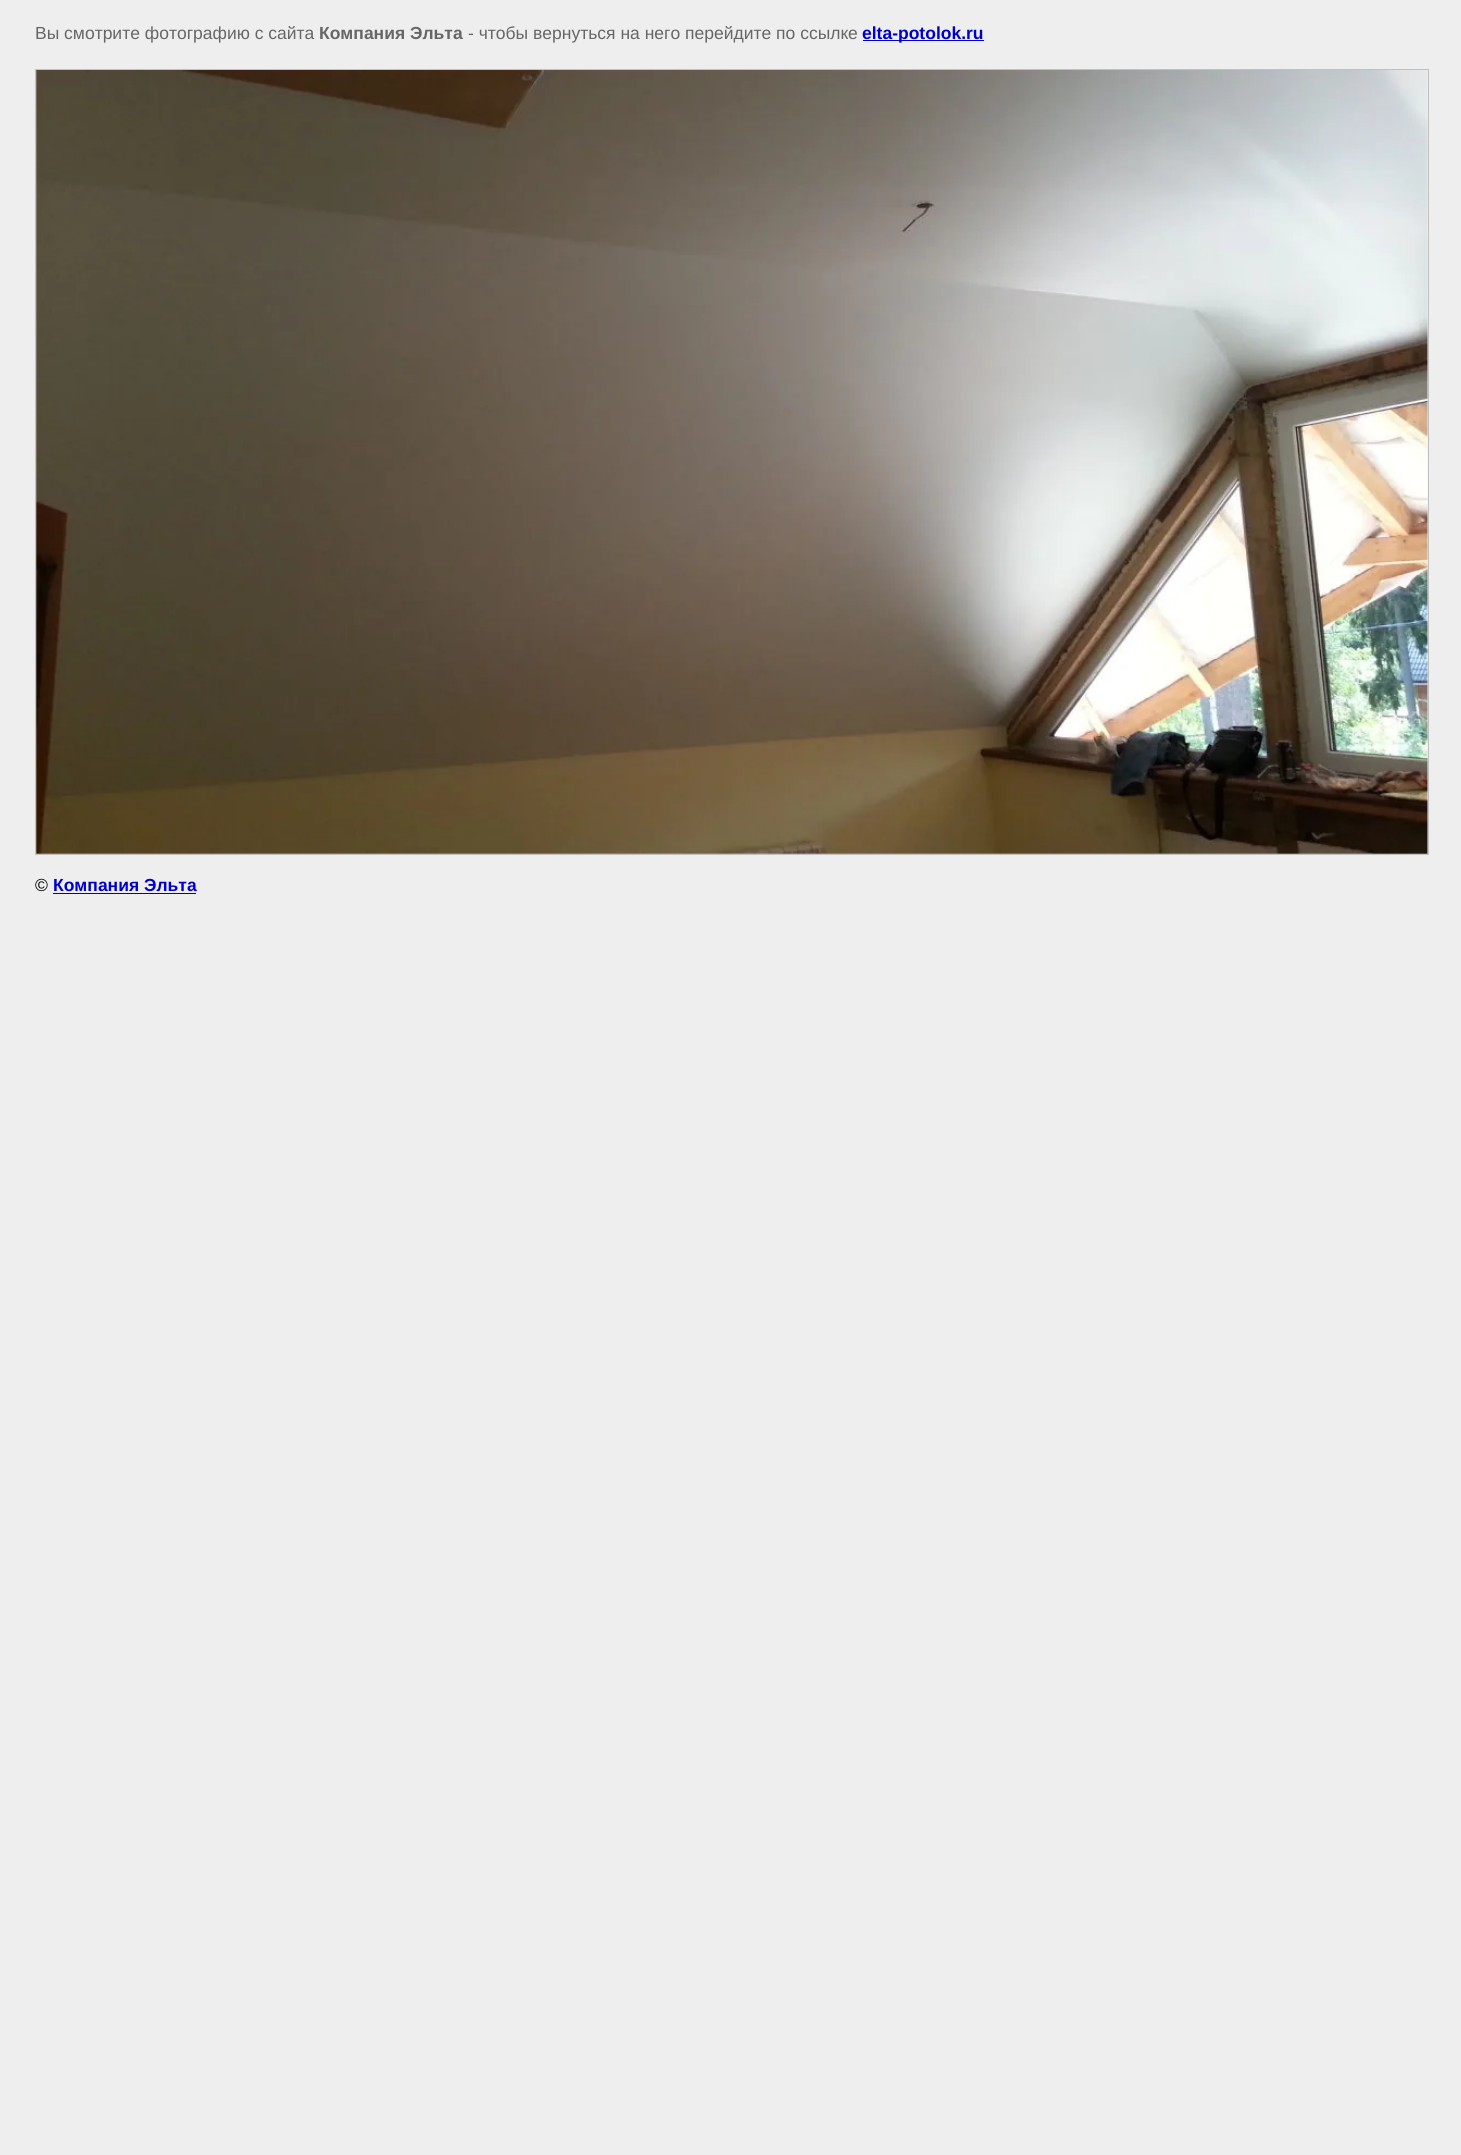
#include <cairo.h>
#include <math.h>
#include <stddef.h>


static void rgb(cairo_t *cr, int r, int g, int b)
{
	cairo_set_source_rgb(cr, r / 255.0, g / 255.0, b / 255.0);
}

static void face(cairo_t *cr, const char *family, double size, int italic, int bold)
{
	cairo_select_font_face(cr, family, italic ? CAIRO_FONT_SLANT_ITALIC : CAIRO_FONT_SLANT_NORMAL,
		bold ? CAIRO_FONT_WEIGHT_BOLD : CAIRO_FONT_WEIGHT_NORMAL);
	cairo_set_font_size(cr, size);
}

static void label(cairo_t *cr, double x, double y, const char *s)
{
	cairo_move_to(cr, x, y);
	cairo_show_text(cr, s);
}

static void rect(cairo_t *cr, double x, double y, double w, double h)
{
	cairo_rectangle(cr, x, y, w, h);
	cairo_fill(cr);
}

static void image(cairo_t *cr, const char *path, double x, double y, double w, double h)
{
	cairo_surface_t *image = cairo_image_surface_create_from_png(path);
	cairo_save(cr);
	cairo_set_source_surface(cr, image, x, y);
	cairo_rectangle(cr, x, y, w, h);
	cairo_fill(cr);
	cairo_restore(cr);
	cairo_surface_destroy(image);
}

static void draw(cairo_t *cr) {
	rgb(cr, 238, 238, 238);
	cairo_paint(cr);
	face(cr, "Liberation Sans", 17.5, 0, 0);
	rgb(cr, 102, 102, 102);
	label(cr, 35, 39, "Вы смотрите фотографию с сайта");
	face(cr, "Liberation Sans", 17.5, 0, 1);
	label(cr, 319, 39, "Компания Эльта");
	face(cr, "Liberation Sans", 17.5, 0, 0);
	label(cr, 468, 39, "- чтобы вернуться на него перейдите по ссылке");
	rgb(cr, 0, 0, 204);
	rect(cr, 863, 40, 121, 1);
	face(cr, "Liberation Sans", 17.5, 0, 1);
	label(cr, 862, 39, "elta-potolok.ru");
	cairo_rectangle(cr, 35.5, 69.5, 1393, 785);
	rgb(cr, 192, 192, 192);
	cairo_set_line_width(cr, 1);
	cairo_stroke(cr);
	image(cr, "image0.png", 36, 70, 1392, 784);
	face(cr, "Liberation Sans", 17.5, 0, 0);
	rgb(cr, 0, 0, 0);
	label(cr, 35, 891, "©");
	face(cr, "Liberation Sans", 17.5, 0, 1);
	rgb(cr, 0, 0, 204);
	label(cr, 53, 891, "Компания Эльта");
	rect(cr, 53, 893, 143, 1);
}

int main(void) {
	cairo_surface_t *surface = cairo_image_surface_create(CAIRO_FORMAT_RGB24, 1461, 2155);
	cairo_t *cr = cairo_create(surface);
	cairo_font_options_t *options = cairo_font_options_create();
	cairo_font_options_set_hint_metrics(options, CAIRO_HINT_METRICS_OFF);
	cairo_font_options_set_hint_style(options, CAIRO_HINT_STYLE_NONE);
	cairo_set_font_options(cr, options);
	cairo_set_miter_limit(cr, 4);
	draw(cr);
	cairo_surface_write_to_png(surface, "render.png");
	cairo_font_options_destroy(options);
	cairo_destroy(cr);
	cairo_surface_destroy(surface);
	return 0;
}
